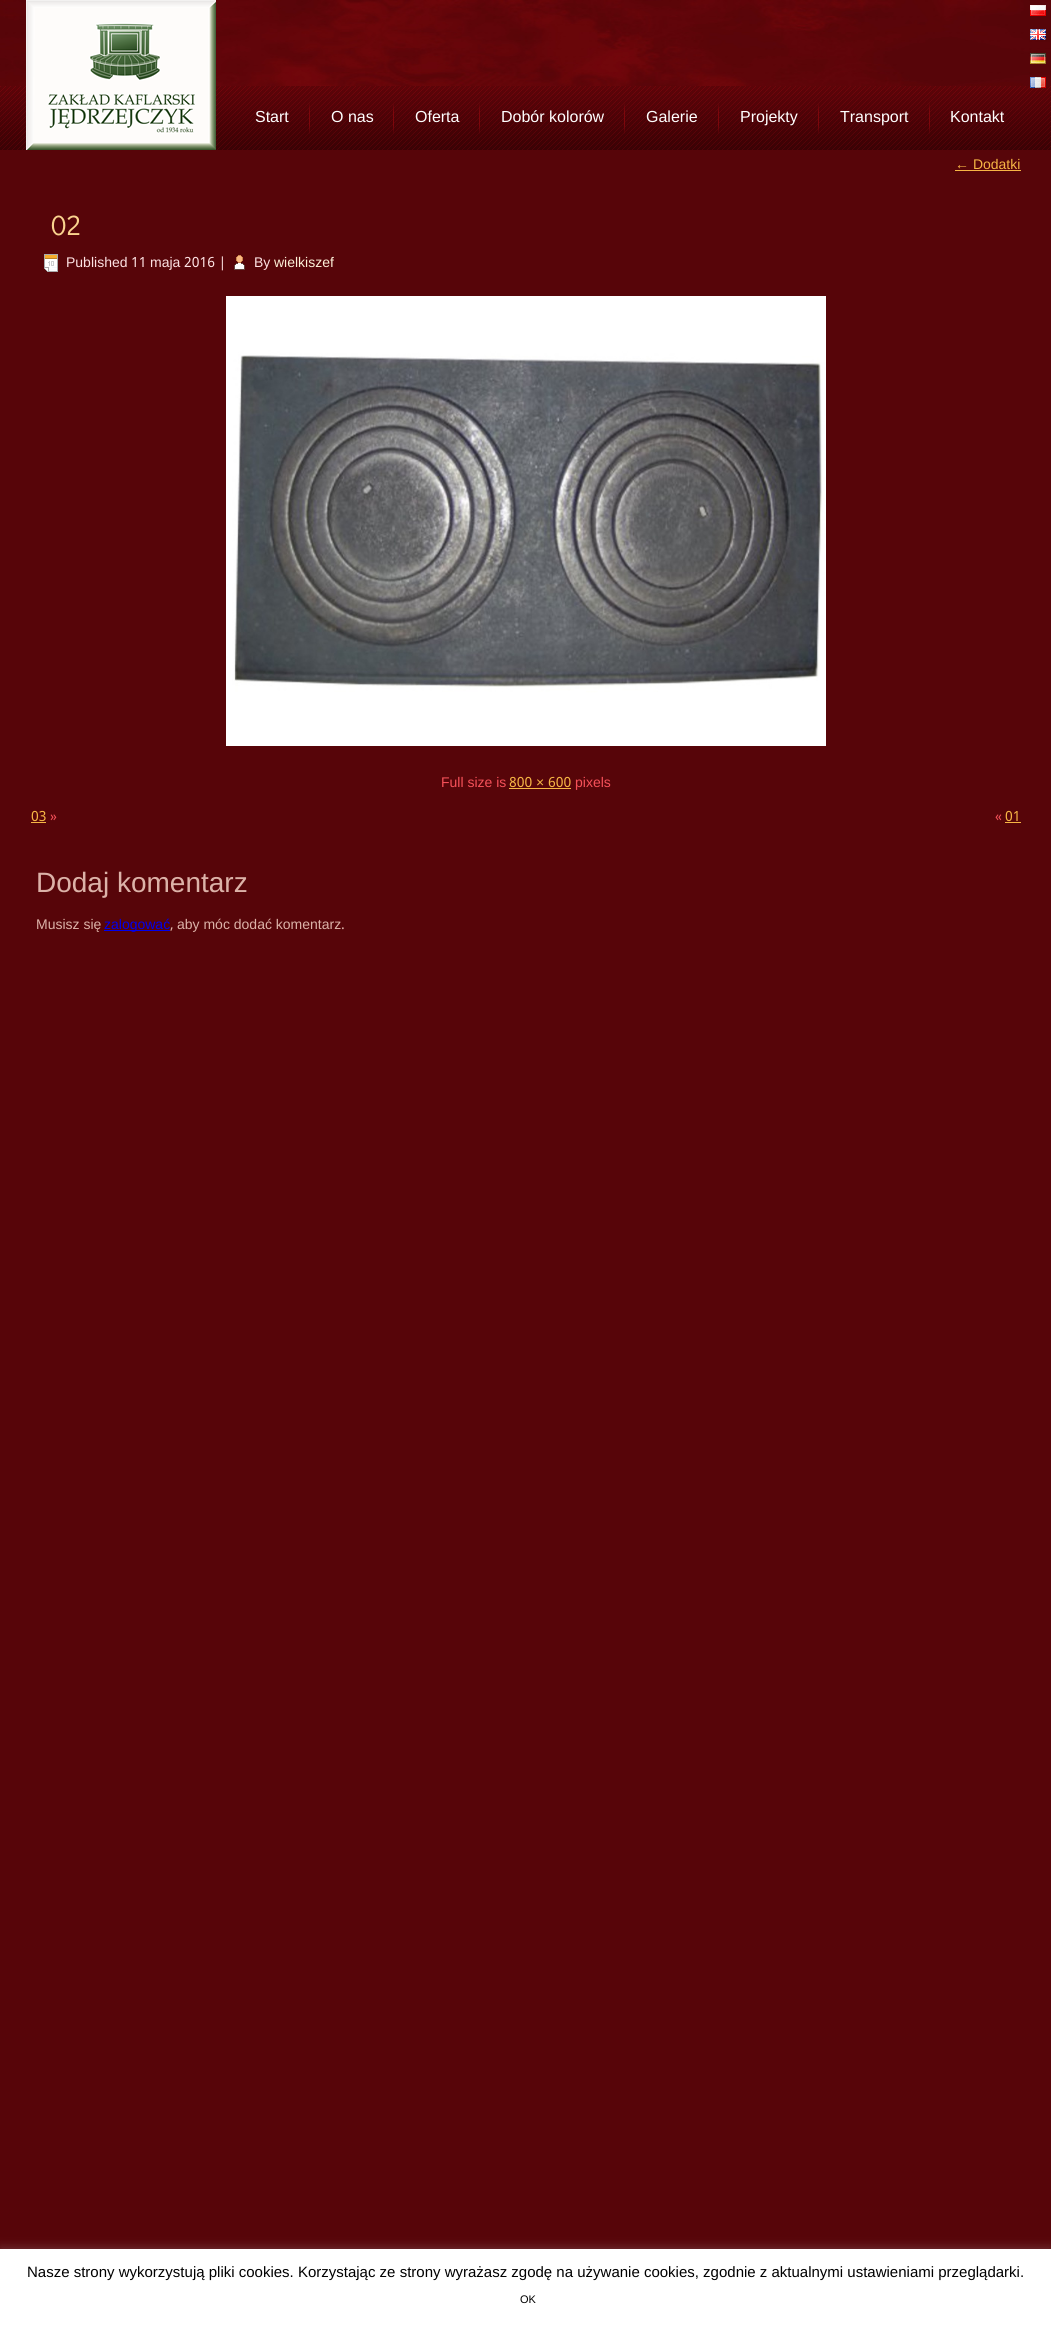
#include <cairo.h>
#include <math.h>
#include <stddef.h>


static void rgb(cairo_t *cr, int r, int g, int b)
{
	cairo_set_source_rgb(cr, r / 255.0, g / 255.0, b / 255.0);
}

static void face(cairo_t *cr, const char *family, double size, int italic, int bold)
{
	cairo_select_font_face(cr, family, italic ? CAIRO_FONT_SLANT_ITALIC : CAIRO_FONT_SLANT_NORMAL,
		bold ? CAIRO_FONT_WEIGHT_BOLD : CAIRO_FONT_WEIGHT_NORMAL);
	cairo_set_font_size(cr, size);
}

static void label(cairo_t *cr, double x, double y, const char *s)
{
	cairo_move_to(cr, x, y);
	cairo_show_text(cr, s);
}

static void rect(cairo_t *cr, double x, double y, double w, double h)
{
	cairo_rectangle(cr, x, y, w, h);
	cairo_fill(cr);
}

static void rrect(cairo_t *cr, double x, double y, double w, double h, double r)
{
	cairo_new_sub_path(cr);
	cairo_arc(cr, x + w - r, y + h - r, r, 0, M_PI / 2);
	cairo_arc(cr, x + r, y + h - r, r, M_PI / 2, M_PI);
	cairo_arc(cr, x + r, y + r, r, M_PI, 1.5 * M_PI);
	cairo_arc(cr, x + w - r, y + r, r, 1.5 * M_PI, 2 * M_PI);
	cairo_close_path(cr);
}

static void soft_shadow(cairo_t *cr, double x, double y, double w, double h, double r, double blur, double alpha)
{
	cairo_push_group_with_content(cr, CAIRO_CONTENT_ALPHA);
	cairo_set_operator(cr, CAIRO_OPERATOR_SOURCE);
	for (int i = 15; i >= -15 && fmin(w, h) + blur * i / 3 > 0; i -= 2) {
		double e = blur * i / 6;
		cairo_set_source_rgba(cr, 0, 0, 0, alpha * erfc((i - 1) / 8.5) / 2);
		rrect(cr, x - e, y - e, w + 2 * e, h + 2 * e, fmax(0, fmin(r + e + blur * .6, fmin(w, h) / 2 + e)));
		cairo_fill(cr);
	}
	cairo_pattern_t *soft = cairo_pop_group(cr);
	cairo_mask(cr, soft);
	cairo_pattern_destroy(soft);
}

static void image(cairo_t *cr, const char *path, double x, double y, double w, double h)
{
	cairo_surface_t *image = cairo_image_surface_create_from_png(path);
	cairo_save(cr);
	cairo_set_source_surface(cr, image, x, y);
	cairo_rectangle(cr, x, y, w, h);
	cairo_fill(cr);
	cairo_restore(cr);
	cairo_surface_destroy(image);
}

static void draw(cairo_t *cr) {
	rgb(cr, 87, 5, 9);
	cairo_paint(cr);
	image(cr, "image0.png", 0, 0, 1051, 86);
	image(cr, "image6.png", 0, 86, 1051, 64);
	image(cr, "image1.png", 26, 0, 190, 150);
	image(cr, "image2.png", 1030, 5, 16, 11);
	image(cr, "image3.png", 1030, 29, 16, 11);
	image(cr, "image4.png", 1030, 53, 16, 11);
	image(cr, "image5.png", 1030, 77, 16, 11);
	face(cr, "Liberation Sans", 16, 0, 0);
	rgb(cr, 255, 255, 255);
	label(cr, 255, 122, "Start");
	image(cr, "image7.png", 309, 103, 1, 31);
	label(cr, 331, 122, "O nas");
	image(cr, "image8.png", 393, 104, 1, 30);
	label(cr, 415, 122, "Oferta");
	image(cr, "image9.png", 479, 103, 1, 31);
	label(cr, 501, 122, "Dobór kolorów");
	image(cr, "image10.png", 624, 103, 1, 31);
	label(cr, 646, 122, "Galerie");
	image(cr, "image11.png", 718, 104, 1, 30);
	label(cr, 740, 122, "Projekty");
	image(cr, "image12.png", 818, 104, 1, 30);
	label(cr, 840, 122, "Transport");
	image(cr, "image7.png", 929, 103, 1, 31);
	label(cr, 950, 122, "Kontakt");
	face(cr, "Liberation Sans", 14, 0, 0);
	rgb(cr, 247, 182, 69);
	label(cr, 955, 169, "← Dodatki");
	rect(cr, 955, 170, 66, 1);
	face(cr, "Didact Gothic", 28, 0, 0);
	rgb(cr, 250, 211, 142);
	label(cr, 51, 235, "02");
	image(cr, "image13.png", 44, 254, 14, 18);
	face(cr, "Liberation Sans", 14, 0, 0);
	rgb(cr, 253, 226, 227);
	label(cr, 66, 267, "Published");
	face(cr, "Khmer", 14, 0, 0);
	label(cr, 131, 267, "11");
	face(cr, "Liberation Sans", 14, 0, 0);
	label(cr, 150, 267, "maja");
	face(cr, "Khmer", 14, 0, 0);
	label(cr, 184, 267, "2016 |");
	image(cr, "image14.png", 234, 255, 11, 15);
	face(cr, "Liberation Sans", 14, 0, 0);
	label(cr, 254, 267, "By");
	rgb(cr, 253, 240, 216);
	label(cr, 274, 267, "wielkiszef");
	image(cr, "image15.png", 226, 296, 600, 450);
	rgb(cr, 246, 81, 89);
	label(cr, 441, 787, "Full size is");
	face(cr, "Khmer", 14, 0, 0);
	rgb(cr, 247, 182, 69);
	label(cr, 509, 787, "800");
	face(cr, "Liberation Sans", 14, 0, 0);
	label(cr, 536, 787, "×");
	rect(cr, 509, 788, 62, 1);
	face(cr, "Khmer", 14, 0, 0);
	label(cr, 548, 787, "600");
	face(cr, "Liberation Sans", 14, 0, 0);
	rgb(cr, 246, 81, 89);
	label(cr, 575, 787, "pixels");
	face(cr, "Khmer", 14, 0, 0);
	rgb(cr, 247, 182, 69);
	label(cr, 31, 821, "03");
	rect(cr, 31, 822, 15, 1);
	rgb(cr, 246, 81, 89);
	label(cr, 50, 821, "»");
	label(cr, 995, 821, "«");
	rgb(cr, 247, 182, 69);
	label(cr, 1005, 821, "01");
	rect(cr, 1005, 822, 16, 1);
	face(cr, "Liberation Sans", 28, 0, 0);
	rgb(cr, 220, 178, 168);
	label(cr, 36, 892, "Dodaj komentarz");
	face(cr, "Liberation Sans", 14, 0, 0);
	label(cr, 36, 929, "Musisz się");
	rgb(cr, 0, 0, 238);
	rect(cr, 104, 930, 66, 1);
	label(cr, 104, 929, "zalogować");
	face(cr, "Khmer", 14, 0, 0);
	rgb(cr, 220, 178, 168);
	label(cr, 170, 929, ",");
	face(cr, "Liberation Sans", 14, 0, 0);
	label(cr, 177, 929, "aby móc dodać komentarz");
	face(cr, "Khmer", 14, 0, 0);
	label(cr, 341, 929, ".");
	rgb(cr, 172, 171, 171);
	soft_shadow(cr, 0, 2248, 1051, 77, 0, 5, 0.3);
	rgb(cr, 255, 255, 255);
	rect(cr, 0, 2249, 1051, 77);
	face(cr, "Liberation Sans", 15, 0, 0);
	rgb(cr, 0, 0, 0);
	label(cr, 27, 2277, "Nasze strony wykorzystują pliki cookies. Korzystając ze strony wyrażasz zgodę na używanie cookies, zgodnie z aktualnymi ustawieniami przeglądarki.");
	face(cr, "Liberation Sans", 11, 0, 0);
	label(cr, 520, 2303, "OK");
}

int main(void) {
	cairo_surface_t *surface = cairo_image_surface_create(CAIRO_FORMAT_RGB24, 1051, 2326);
	cairo_t *cr = cairo_create(surface);
	cairo_font_options_t *options = cairo_font_options_create();
	cairo_font_options_set_hint_metrics(options, CAIRO_HINT_METRICS_OFF);
	cairo_font_options_set_hint_style(options, CAIRO_HINT_STYLE_NONE);
	cairo_set_font_options(cr, options);
	cairo_set_miter_limit(cr, 4);
	draw(cr);
	cairo_surface_write_to_png(surface, "render.png");
	cairo_font_options_destroy(options);
	cairo_destroy(cr);
	cairo_surface_destroy(surface);
	return 0;
}
